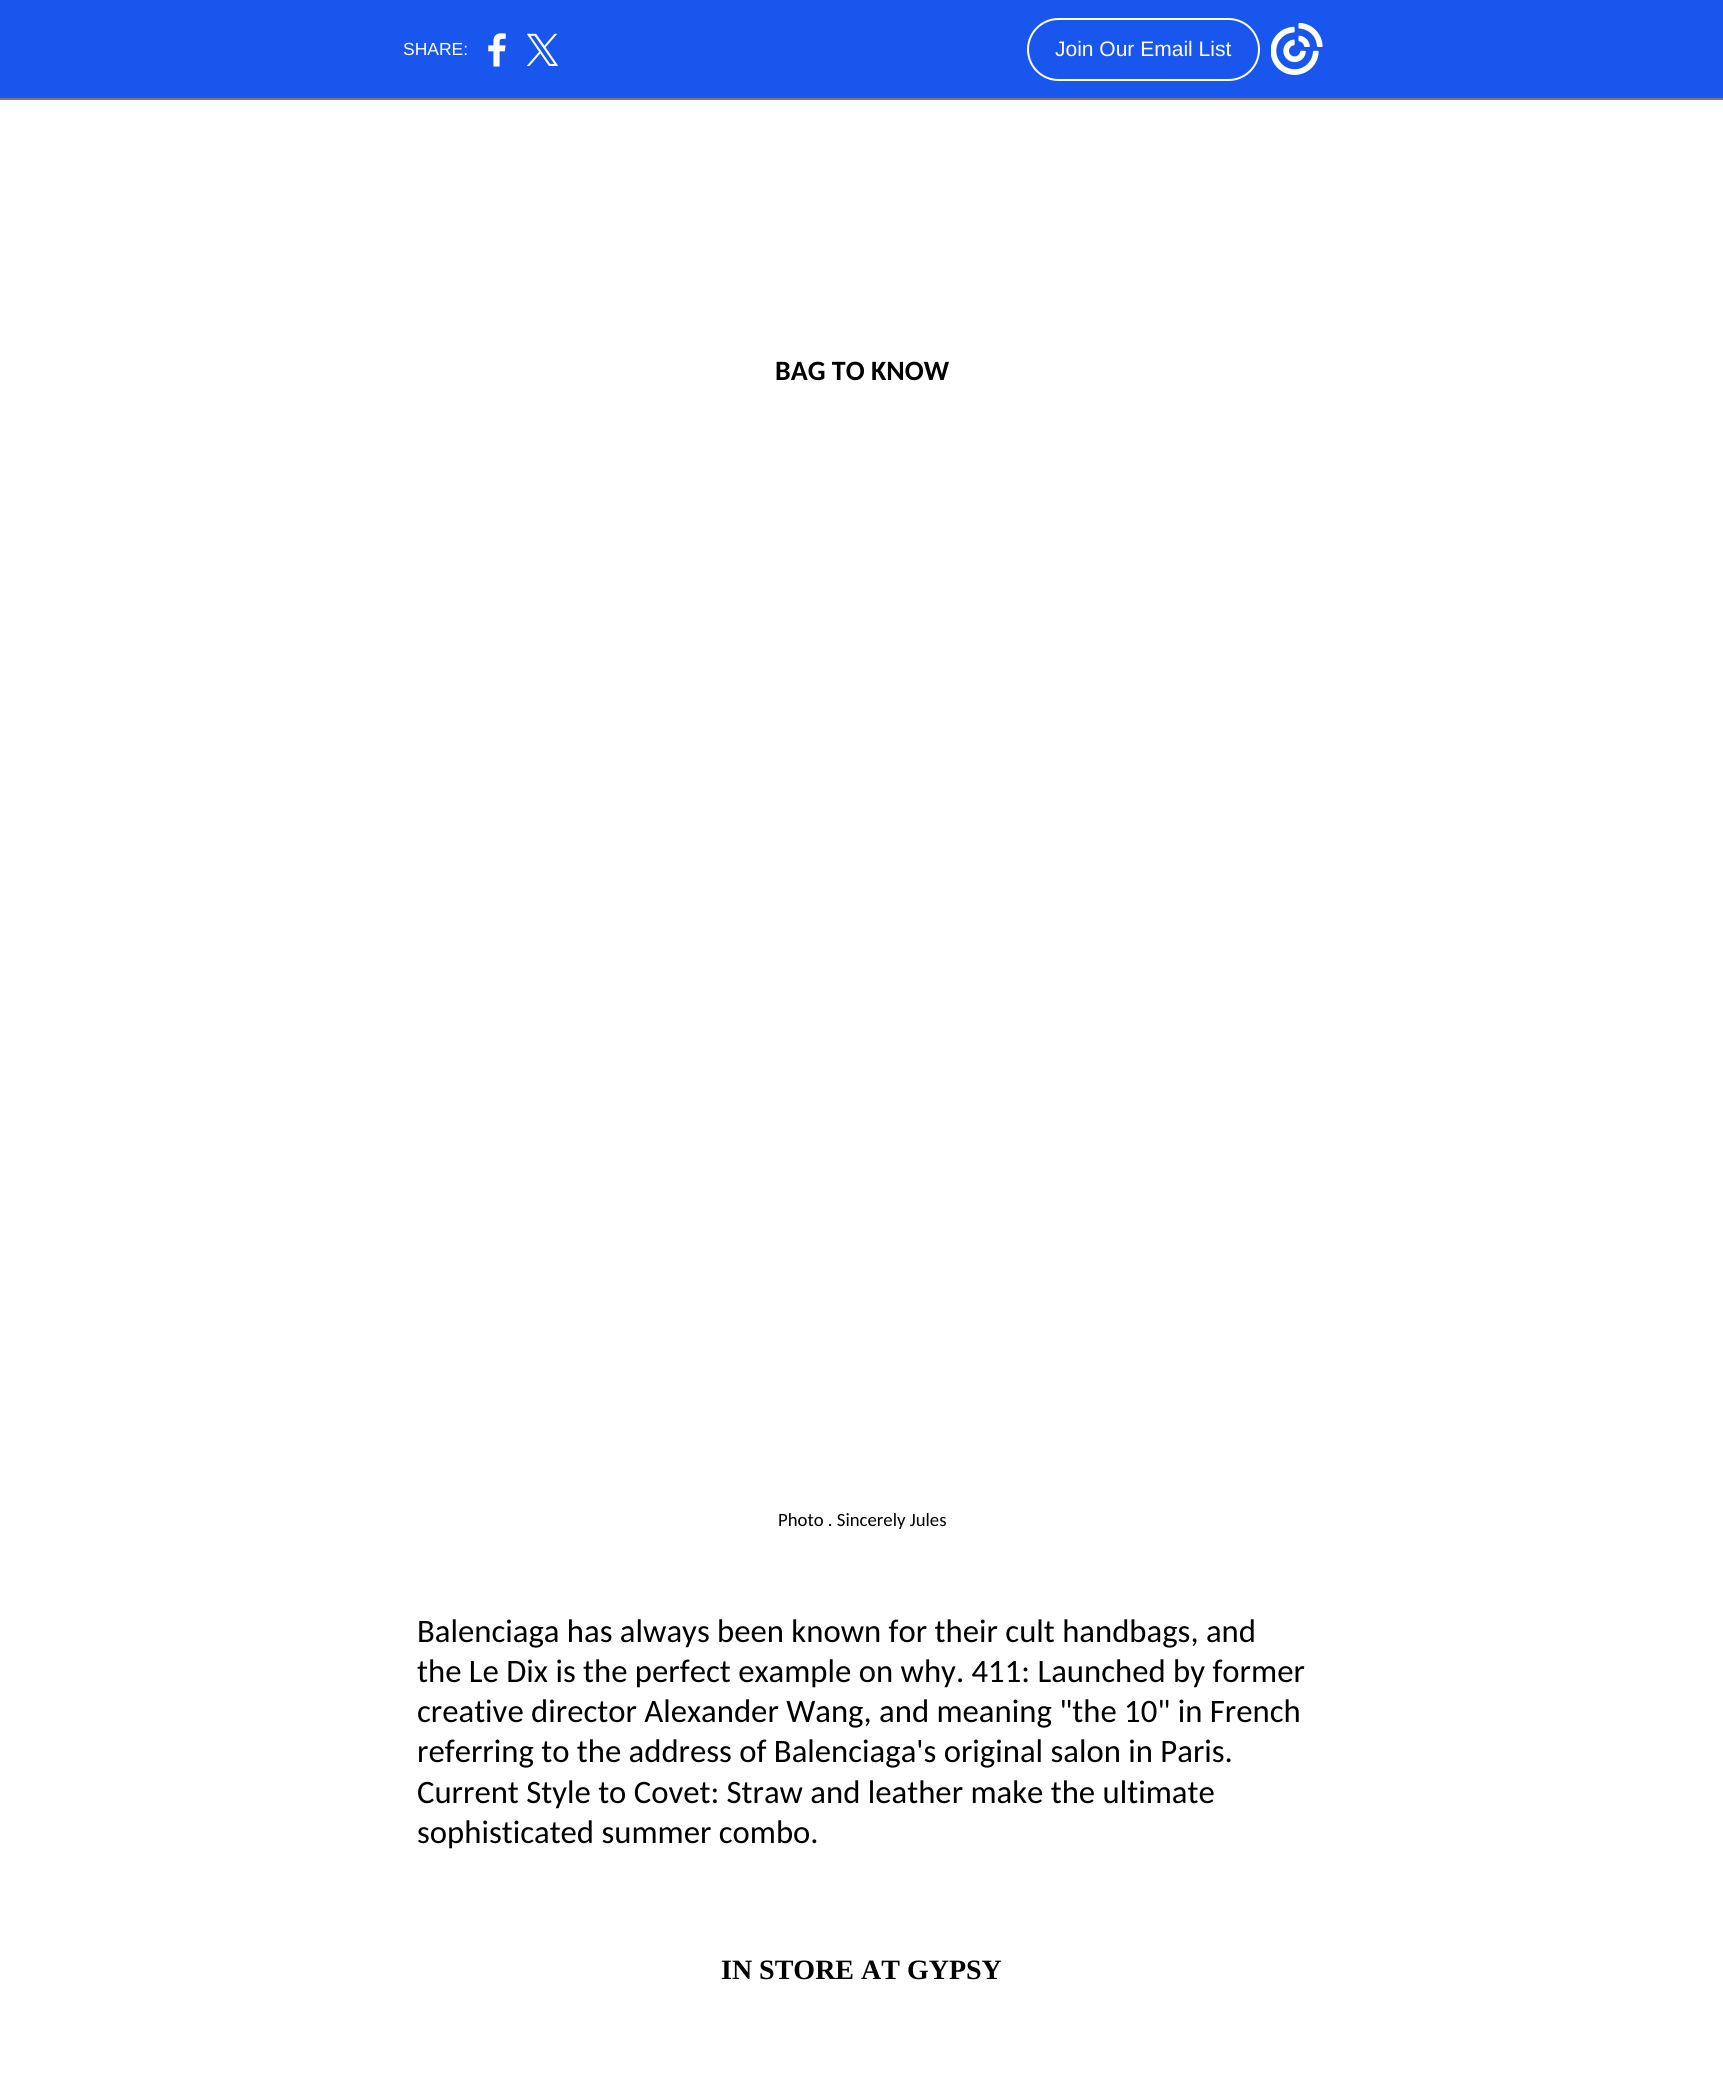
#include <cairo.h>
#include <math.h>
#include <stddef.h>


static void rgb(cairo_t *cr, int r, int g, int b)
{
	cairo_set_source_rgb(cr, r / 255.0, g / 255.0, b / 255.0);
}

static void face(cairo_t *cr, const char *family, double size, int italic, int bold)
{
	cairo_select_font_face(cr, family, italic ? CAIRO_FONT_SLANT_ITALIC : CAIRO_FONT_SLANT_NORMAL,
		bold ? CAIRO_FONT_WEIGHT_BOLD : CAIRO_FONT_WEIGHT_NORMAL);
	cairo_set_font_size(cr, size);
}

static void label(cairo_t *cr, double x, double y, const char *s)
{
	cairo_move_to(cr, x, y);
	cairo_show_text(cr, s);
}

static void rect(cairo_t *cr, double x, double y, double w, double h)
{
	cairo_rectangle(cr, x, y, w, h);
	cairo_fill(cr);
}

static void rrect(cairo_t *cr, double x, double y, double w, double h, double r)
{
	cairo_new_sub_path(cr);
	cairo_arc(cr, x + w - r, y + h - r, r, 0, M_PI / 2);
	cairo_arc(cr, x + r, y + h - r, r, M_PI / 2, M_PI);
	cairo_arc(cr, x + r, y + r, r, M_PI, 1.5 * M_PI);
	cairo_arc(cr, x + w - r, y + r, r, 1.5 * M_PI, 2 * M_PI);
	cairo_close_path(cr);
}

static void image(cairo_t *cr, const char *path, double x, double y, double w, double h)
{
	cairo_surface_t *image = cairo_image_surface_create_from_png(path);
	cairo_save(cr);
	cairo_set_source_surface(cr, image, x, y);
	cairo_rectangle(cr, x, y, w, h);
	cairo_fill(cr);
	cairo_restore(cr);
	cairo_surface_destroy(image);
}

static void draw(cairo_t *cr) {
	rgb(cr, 255, 255, 255);
	cairo_paint(cr);
	rgb(cr, 24, 86, 237);
	rect(cr, 0, 0, 1723, 98);
	rgb(cr, 122, 122, 122);
	rect(cr, 0, 98, 1723, 2);
	face(cr, "Liberation Sans", 17.5, 0, 0);
	rgb(cr, 255, 255, 255);
	label(cr, 403, 55, "SHARE:");
	image(cr, "image0.png", 488, 33, 18, 34);
	image(cr, "image1.png", 527, 33, 31, 33);
	rrect(cr, 1028, 19, 231, 61, 30.5);
	cairo_stroke(cr);
	face(cr, "Liberation Sans", 21, 0, 0);
	label(cr, 1055, 56, "Join Our Email List");
	image(cr, "image2.png", 1271, 23, 52, 52);
	face(cr, "Carlito", 28, 0, 1);
	rgb(cr, 0, 0, 0);
	label(cr, 775, 380, "BAG TO KNOW");
	face(cr, "Carlito", 18.75, 0, 0);
	label(cr, 778, 1526, "Photo . Sincerely Jules");
	face(cr, "Carlito", 32.7, 0, 0);
	label(cr, 417, 1642, "Balenciaga has always been known for their cult handbags, and");
	label(cr, 417, 1682, "the Le Dix is the perfect example on why. 411: Launched by former");
	label(cr, 417, 1722, "creative director Alexander Wang, and meaning \"the 10\" in French");
	label(cr, 417, 1762, "referring to the address of Balenciaga's original salon in Paris.");
	label(cr, 417, 1803, "Current Style to Covet: Straw and leather make the ultimate");
	label(cr, 417, 1843, "sophisticated summer combo.");
	face(cr, "Liberation Serif", 28, 0, 1);
	label(cr, 721, 1979, "IN STORE AT GYPSY");
}

int main(void) {
	cairo_surface_t *surface = cairo_image_surface_create(CAIRO_FORMAT_RGB24, 1723, 2087);
	cairo_t *cr = cairo_create(surface);
	cairo_font_options_t *options = cairo_font_options_create();
	cairo_font_options_set_hint_metrics(options, CAIRO_HINT_METRICS_OFF);
	cairo_font_options_set_hint_style(options, CAIRO_HINT_STYLE_NONE);
	cairo_set_font_options(cr, options);
	cairo_set_miter_limit(cr, 4);
	draw(cr);
	cairo_surface_write_to_png(surface, "render.png");
	cairo_font_options_destroy(options);
	cairo_destroy(cr);
	cairo_surface_destroy(surface);
	return 0;
}
